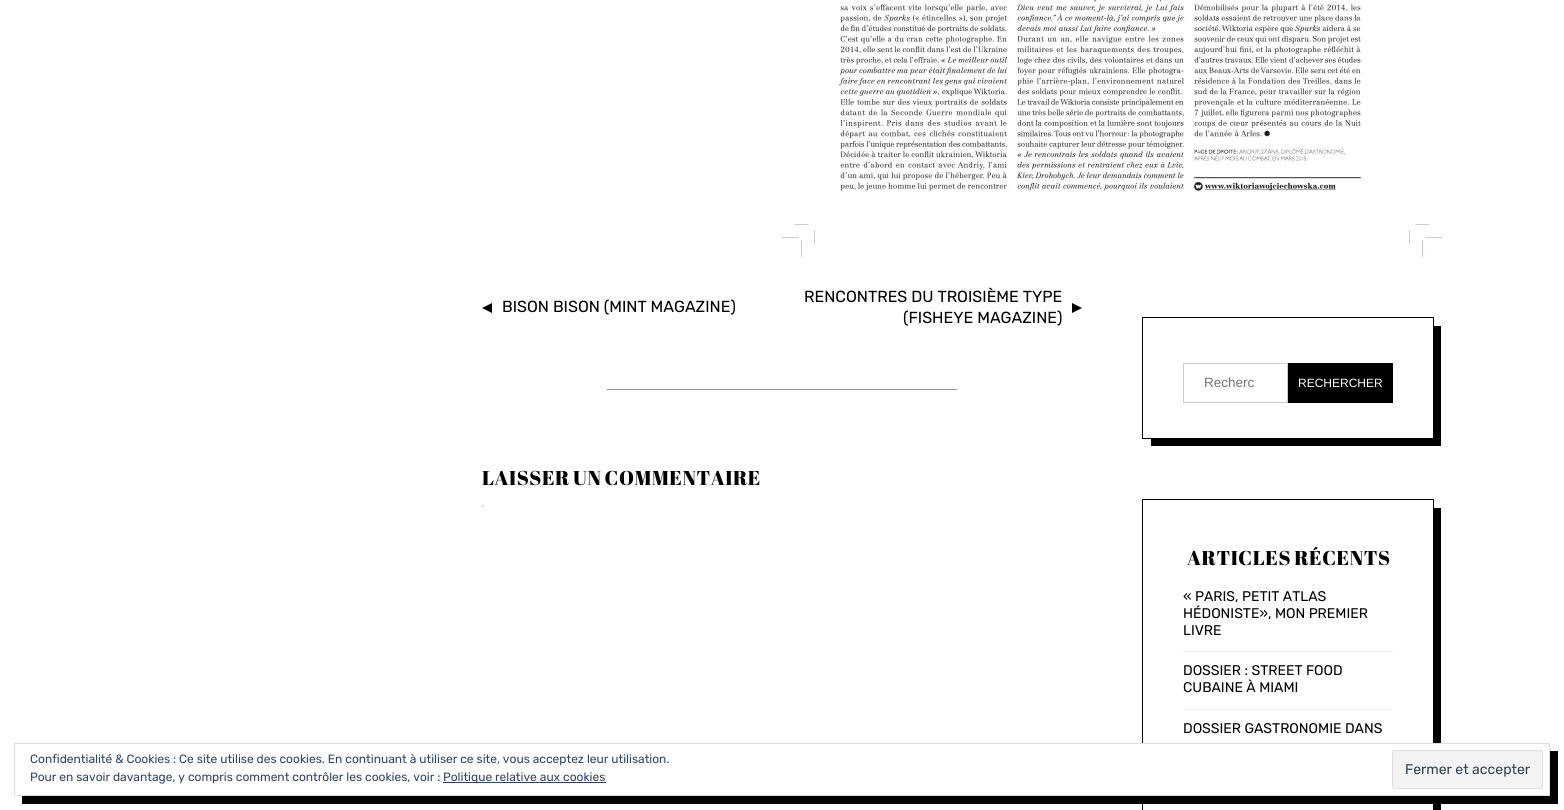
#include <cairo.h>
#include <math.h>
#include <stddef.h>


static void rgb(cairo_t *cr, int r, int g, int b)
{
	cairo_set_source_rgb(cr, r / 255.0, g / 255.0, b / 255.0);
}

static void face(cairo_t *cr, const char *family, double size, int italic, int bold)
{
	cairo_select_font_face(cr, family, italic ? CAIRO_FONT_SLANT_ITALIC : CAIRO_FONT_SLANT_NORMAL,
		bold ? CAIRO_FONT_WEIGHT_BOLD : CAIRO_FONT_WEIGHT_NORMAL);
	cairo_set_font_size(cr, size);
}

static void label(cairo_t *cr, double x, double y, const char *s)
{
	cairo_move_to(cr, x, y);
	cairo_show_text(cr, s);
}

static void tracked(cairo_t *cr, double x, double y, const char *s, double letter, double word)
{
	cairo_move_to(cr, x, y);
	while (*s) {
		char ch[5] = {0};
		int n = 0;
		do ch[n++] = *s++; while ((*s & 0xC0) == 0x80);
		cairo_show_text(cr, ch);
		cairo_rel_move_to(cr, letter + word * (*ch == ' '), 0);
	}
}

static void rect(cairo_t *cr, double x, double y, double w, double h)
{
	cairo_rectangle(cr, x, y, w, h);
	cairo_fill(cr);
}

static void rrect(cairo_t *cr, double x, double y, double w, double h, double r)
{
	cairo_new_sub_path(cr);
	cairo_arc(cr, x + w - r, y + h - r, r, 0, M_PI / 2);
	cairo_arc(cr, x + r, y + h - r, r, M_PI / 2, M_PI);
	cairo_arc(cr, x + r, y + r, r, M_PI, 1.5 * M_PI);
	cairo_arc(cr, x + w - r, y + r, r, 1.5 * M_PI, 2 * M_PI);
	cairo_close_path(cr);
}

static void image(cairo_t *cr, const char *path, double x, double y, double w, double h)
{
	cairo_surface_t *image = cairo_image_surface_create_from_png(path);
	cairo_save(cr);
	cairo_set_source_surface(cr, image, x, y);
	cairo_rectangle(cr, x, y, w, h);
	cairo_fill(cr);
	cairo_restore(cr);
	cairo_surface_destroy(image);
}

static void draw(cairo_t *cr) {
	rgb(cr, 255, 255, 255);
	cairo_paint(cr);
	image(cr, "image0.png", 782, 0, 660, 257);
	rgb(cr, 0, 0, 0);
	cairo_new_path(cr);
	cairo_move_to(cr, 492, 303);
	cairo_line_to(cr, 492, 313);
	cairo_line_to(cr, 482, 308);
	cairo_close_path(cr);
	cairo_fill(cr);
	face(cr, "Rubik", 16, 0, 0);
	label(cr, 502, 312, "BISON BISON (MINT MAGAZINE)");
	label(cr, 804, 302, "RENCONTRES DU TROISIÈME TYPE");
	cairo_new_path(cr);
	cairo_move_to(cr, 1072, 313);
	cairo_line_to(cr, 1072, 303);
	cairo_line_to(cr, 1082, 308);
	cairo_close_path(cr);
	cairo_fill(cr);
	label(cr, 903, 323, "(FISHEYE MAGAZINE)");
	rgb(cr, 151, 151, 151);
	rect(cr, 607, 389, 350, 1);
	face(cr, "Abril Fatface", 20, 0, 0);
	rgb(cr, 0, 0, 0);
	tracked(cr, 482, 485, "LAISSER UN COMMENTAIRE", 0.6, -1);
	rgb(cr, 220, 220, 222);
	rect(cr, 482, 505, 2, 2);
	rgb(cr, 0, 0, 0);
	rect(cr, 1151, 326, 290, 120);
	rgb(cr, 255, 255, 255);
	rect(cr, 1151, 326, 282, 112);
	cairo_rectangle(cr, 1142.5, 317.5, 291, 121);
	rgb(cr, 0, 0, 0);
	cairo_set_line_width(cr, 1);
	cairo_stroke(cr);
	cairo_rectangle(cr, 1183.5, 363.5, 104, 39);
	rgb(cr, 204, 204, 204);
	cairo_stroke(cr);
	face(cr, "Liberation Sans", 13.5, 0, 0);
	rgb(cr, 117, 117, 117);
	label(cr, 1204, 387, "Recherc");
	rgb(cr, 0, 0, 0);
	rect(cr, 1288, 363, 105, 40);
	face(cr, "Liberation Sans", 12, 0, 0);
	rgb(cr, 255, 255, 255);
	label(cr, 1298, 387, "RECHERCHER");
	cairo_rectangle(cr, 1142.5, 499.5, 291, 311);
	rgb(cr, 0, 0, 0);
	cairo_stroke(cr);
	face(cr, "Abril Fatface", 20, 0, 0);
	tracked(cr, 1187, 565, "ARTICLES RÉCENTS", 0.6, -1);
	rect(cr, 1434, 508, 7, 302);
	face(cr, "Rubik", 14, 0, 0);
	label(cr, 1183, 601, "« PARIS, PETIT ATLAS");
	label(cr, 1183, 618, "HÉDONISTE», MON PREMIER");
	label(cr, 1183, 635, "LIVRE");
	rgb(cr, 242, 242, 242);
	rect(cr, 1183, 651, 210, 1);
	rgb(cr, 0, 0, 0);
	label(cr, 1183, 675, "DOSSIER : STREET FOOD");
	label(cr, 1183, 692, "CUBAINE À MIAMI");
	rgb(cr, 242, 242, 242);
	rect(cr, 1183, 709, 210, 1);
	rgb(cr, 0, 0, 0);
	label(cr, 1183, 733, "DOSSIER GASTRONOMIE DANS");
	rect(cr, 22, 751, 1536, 53);
	rgb(cr, 255, 255, 255);
	rect(cr, 22, 744, 1527, 51);
	cairo_rectangle(cr, 14.5, 743.5, 1535, 52);
	rgb(cr, 222, 222, 222);
	cairo_stroke(cr);
	face(cr, "Rubik", 12, 0, 0);
	rgb(cr, 46, 68, 103);
	label(cr, 30, 763, "Confidentialité & Cookies : Ce site utilise des cookies. En continuant à utiliser ce site, vous acceptez leur utilisation.");
	label(cr, 30, 781, "Pour en savoir davantage, y compris comment contrôler les cookies, voir :");
	rect(cr, 443, 782, 163, 1);
	label(cr, 443, 781, "Politique relative aux cookies");
	rgb(cr, 243, 243, 243);
	rrect(cr, 1392.5, 750.5, 150, 38, 2.5);
	cairo_fill_preserve(cr);
	rgb(cr, 222, 222, 222);
	cairo_stroke(cr);
	face(cr, "Rubik", 14, 0, 0);
	rgb(cr, 46, 68, 83);
	label(cr, 1405, 774, "Fermer et accepter");
}

int main(void) {
	cairo_surface_t *surface = cairo_image_surface_create(CAIRO_FORMAT_RGB24, 1564, 810);
	cairo_t *cr = cairo_create(surface);
	cairo_font_options_t *options = cairo_font_options_create();
	cairo_font_options_set_hint_metrics(options, CAIRO_HINT_METRICS_OFF);
	cairo_font_options_set_hint_style(options, CAIRO_HINT_STYLE_NONE);
	cairo_set_font_options(cr, options);
	cairo_set_miter_limit(cr, 4);
	draw(cr);
	cairo_surface_write_to_png(surface, "render.png");
	cairo_font_options_destroy(options);
	cairo_destroy(cr);
	cairo_surface_destroy(surface);
	return 0;
}
